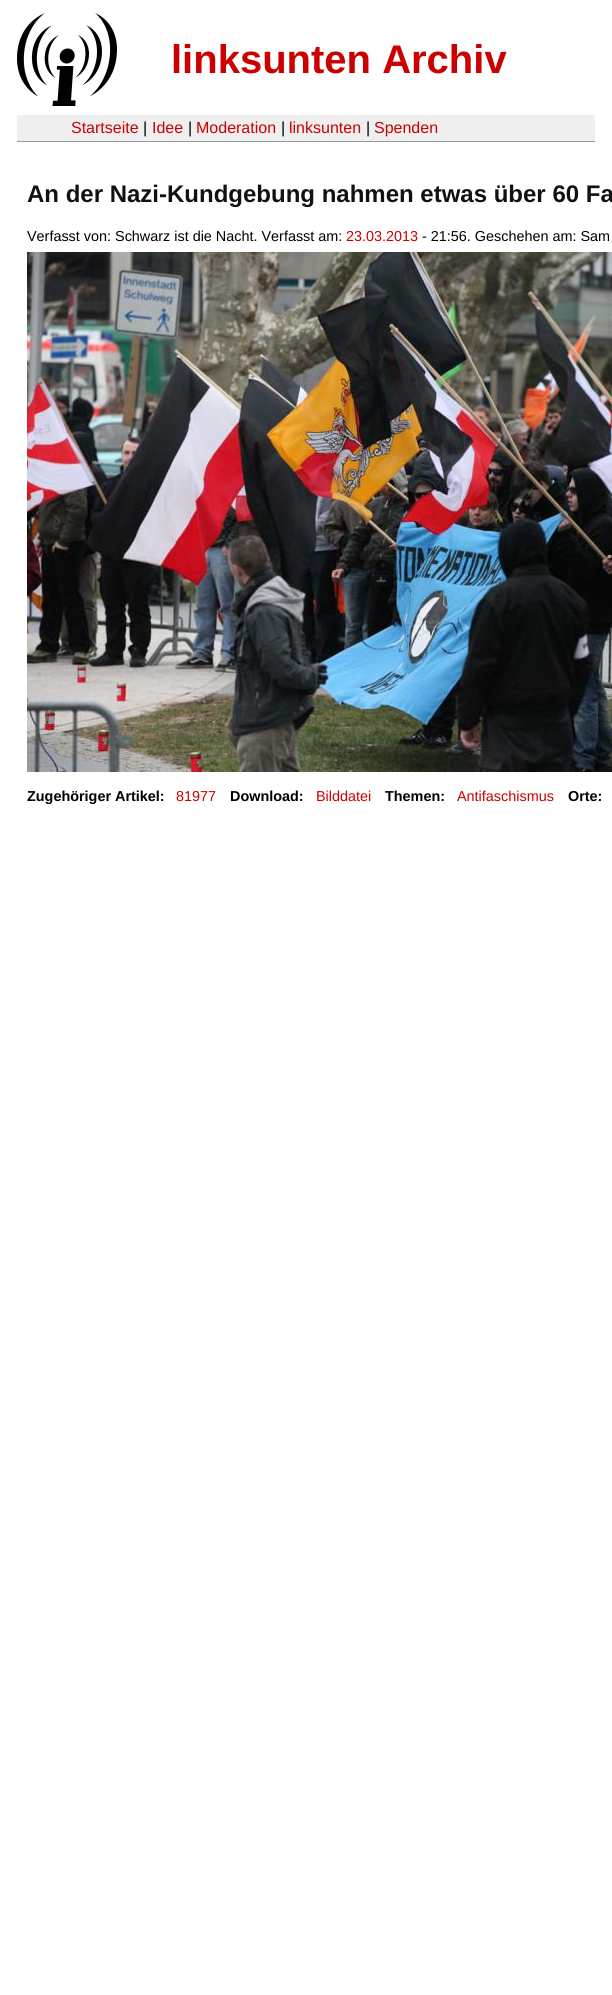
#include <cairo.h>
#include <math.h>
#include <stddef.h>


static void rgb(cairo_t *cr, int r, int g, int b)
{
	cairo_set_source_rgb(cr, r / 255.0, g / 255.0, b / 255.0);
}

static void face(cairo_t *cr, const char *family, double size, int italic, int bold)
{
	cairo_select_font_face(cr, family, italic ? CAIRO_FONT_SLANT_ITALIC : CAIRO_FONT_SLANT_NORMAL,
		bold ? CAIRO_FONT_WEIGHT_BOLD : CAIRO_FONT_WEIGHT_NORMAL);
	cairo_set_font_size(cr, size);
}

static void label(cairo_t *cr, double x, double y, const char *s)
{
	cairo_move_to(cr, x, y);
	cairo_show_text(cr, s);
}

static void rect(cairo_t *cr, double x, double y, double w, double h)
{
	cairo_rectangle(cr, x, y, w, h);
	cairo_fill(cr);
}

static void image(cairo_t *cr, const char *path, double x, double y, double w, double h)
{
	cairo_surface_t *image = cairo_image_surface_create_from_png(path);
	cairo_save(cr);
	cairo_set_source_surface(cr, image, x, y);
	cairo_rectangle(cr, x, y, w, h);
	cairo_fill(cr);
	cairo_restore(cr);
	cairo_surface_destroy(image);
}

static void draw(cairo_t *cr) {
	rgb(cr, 255, 255, 255);
	cairo_paint(cr);
	image(cr, "image0.png", 17, 13, 100, 93);
	face(cr, "Liberation Sans", 40, 0, 1);
	rgb(cr, 204, 0, 0);
	label(cr, 171, 73, "linksunten Archiv");
	rgb(cr, 239, 239, 239);
	rect(cr, 17, 115, 578, 26);
	rgb(cr, 153, 153, 153);
	rect(cr, 17, 141, 578, 1);
	face(cr, "Liberation Sans", 16, 0, 0);
	rgb(cr, 204, 0, 0);
	label(cr, 71, 133, "Startseite");
	rgb(cr, 0, 0, 0);
	label(cr, 143, 133, "|");
	rgb(cr, 204, 0, 0);
	label(cr, 152, 133, "Idee");
	rgb(cr, 0, 0, 0);
	label(cr, 188, 133, "|");
	rgb(cr, 204, 0, 0);
	label(cr, 196, 133, "Moderation");
	rgb(cr, 0, 0, 0);
	label(cr, 281, 133, "|");
	rgb(cr, 204, 0, 0);
	label(cr, 289, 133, "linksunten");
	rgb(cr, 0, 0, 0);
	label(cr, 366, 133, "|");
	rgb(cr, 204, 0, 0);
	label(cr, 374, 133, "Spenden");
	face(cr, "Liberation Sans", 24, 0, 1);
	rgb(cr, 17, 17, 17);
	label(cr, 27, 202, "An der Nazi-Kundgebung nahmen etwas über 60 Fa");
	face(cr, "Liberation Sans", 14.4, 0, 0);
	rgb(cr, 0, 0, 0);
	label(cr, 27, 241, "Verfasst von: Schwarz ist die Nacht. Verfasst am:");
	rgb(cr, 204, 0, 0);
	label(cr, 346, 241, "23.03.2013");
	rgb(cr, 0, 0, 0);
	label(cr, 422, 241, "- 21:56. Geschehen am: Sam");
	image(cr, "image1.png", 27, 252, 585, 520);
	face(cr, "Liberation Sans", 14.4, 0, 1);
	label(cr, 27, 801, "Zugehöriger Artikel:");
	face(cr, "Liberation Sans", 14.4, 0, 0);
	rgb(cr, 204, 0, 0);
	label(cr, 176, 801, "81977");
	face(cr, "Liberation Sans", 14.4, 0, 1);
	rgb(cr, 0, 0, 0);
	label(cr, 230, 801, "Download:");
	face(cr, "Liberation Sans", 14.4, 0, 0);
	rgb(cr, 204, 0, 0);
	label(cr, 316, 801, "Bilddatei");
	face(cr, "Liberation Sans", 14.4, 0, 1);
	rgb(cr, 0, 0, 0);
	label(cr, 385, 801, "Themen:");
	face(cr, "Liberation Sans", 14.4, 0, 0);
	rgb(cr, 204, 0, 0);
	label(cr, 457, 801, "Antifaschismus");
	face(cr, "Liberation Sans", 14.4, 0, 1);
	rgb(cr, 0, 0, 0);
	label(cr, 568, 801, "Orte:");
}

int main(void) {
	cairo_surface_t *surface = cairo_image_surface_create(CAIRO_FORMAT_RGB24, 612, 1995);
	cairo_t *cr = cairo_create(surface);
	cairo_font_options_t *options = cairo_font_options_create();
	cairo_font_options_set_hint_metrics(options, CAIRO_HINT_METRICS_OFF);
	cairo_font_options_set_hint_style(options, CAIRO_HINT_STYLE_NONE);
	cairo_set_font_options(cr, options);
	cairo_set_miter_limit(cr, 4);
	draw(cr);
	cairo_surface_write_to_png(surface, "render.png");
	cairo_font_options_destroy(options);
	cairo_destroy(cr);
	cairo_surface_destroy(surface);
	return 0;
}
